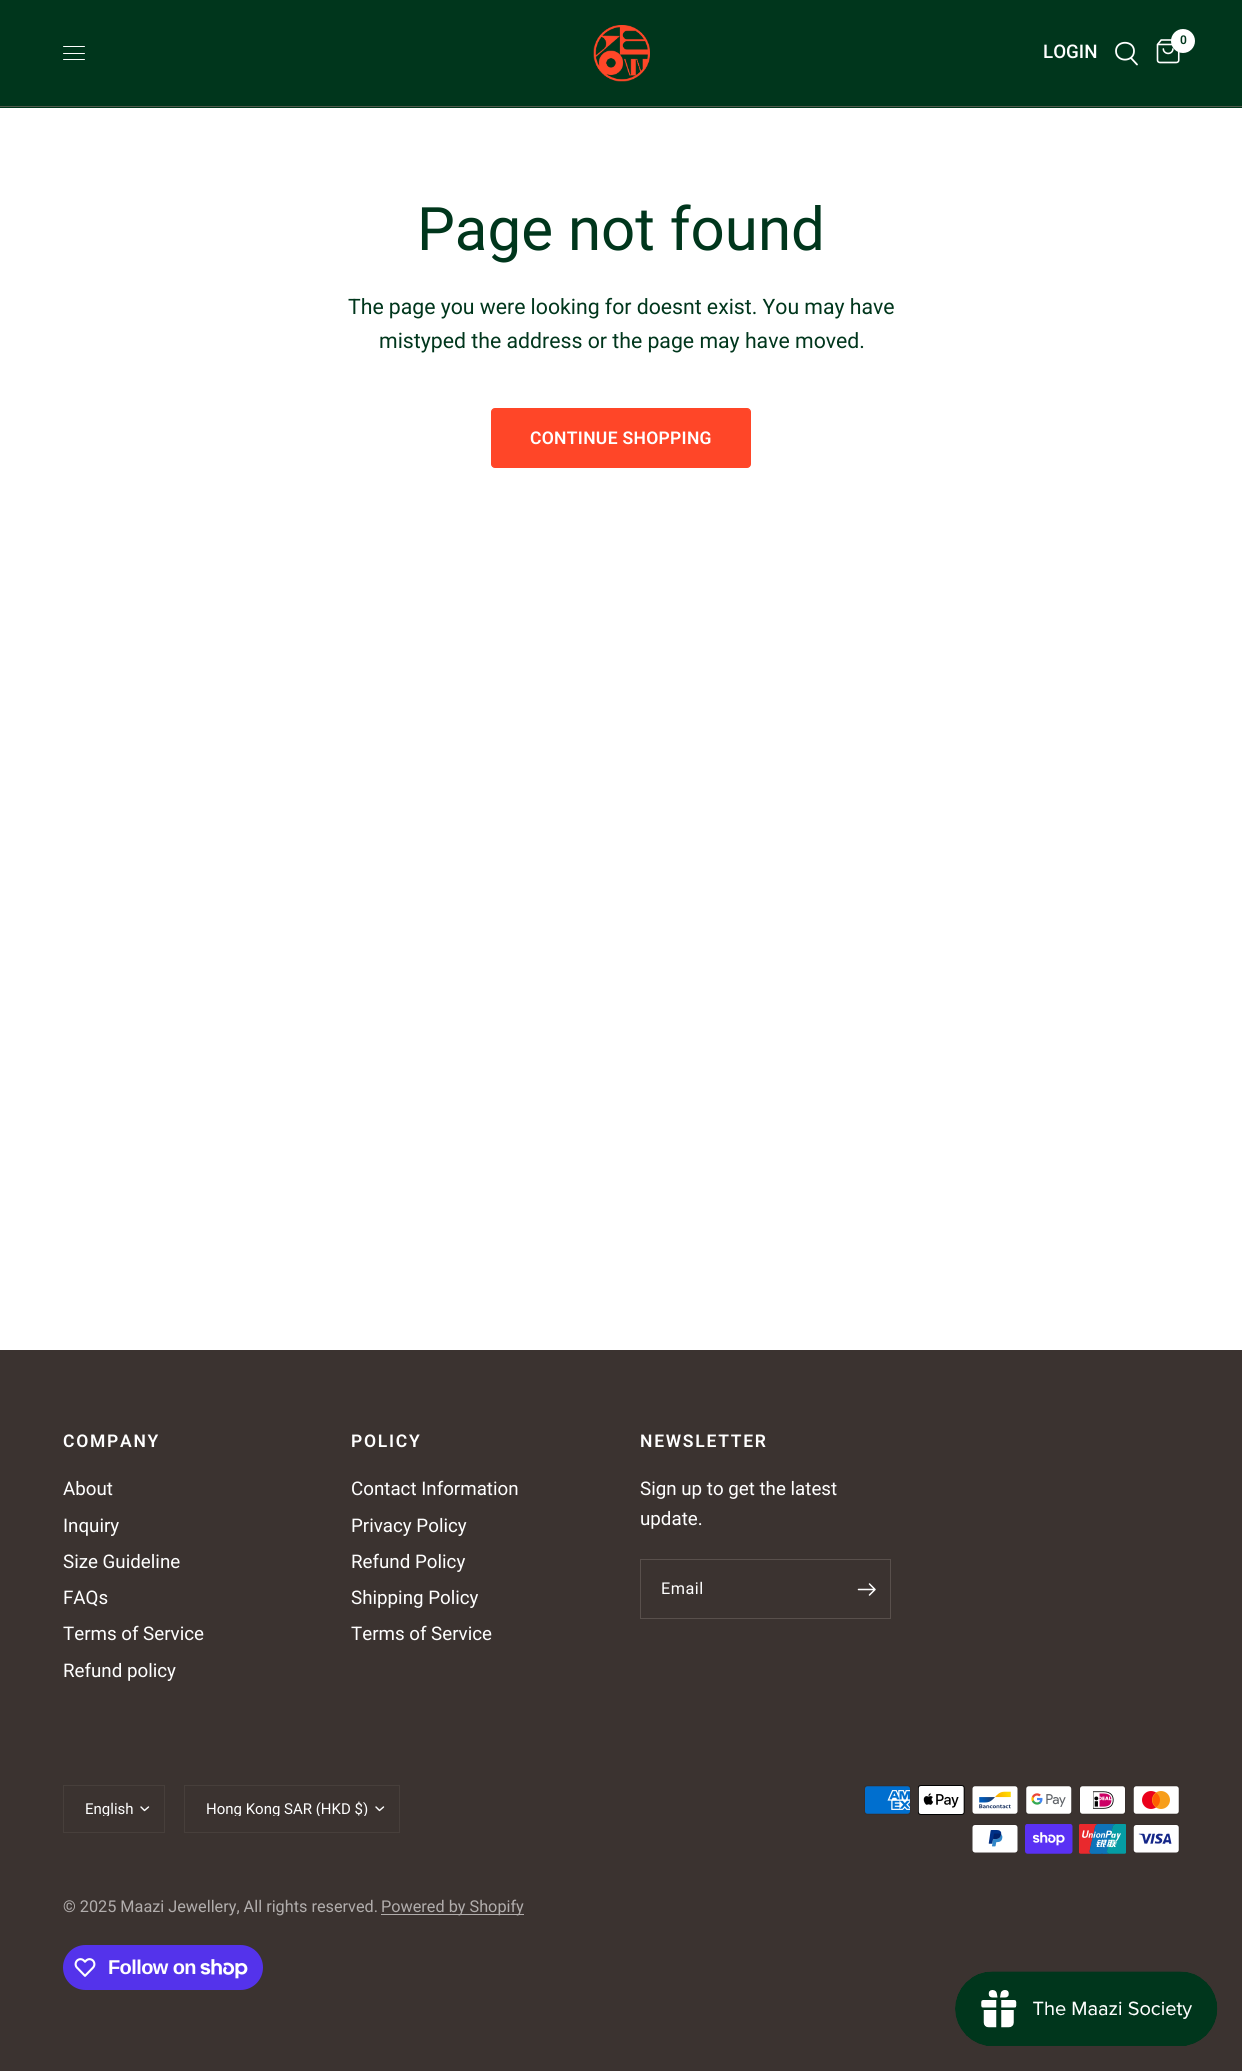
#include <cairo.h>
#include <math.h>
#include <stddef.h>


static void rgb(cairo_t *cr, int r, int g, int b)
{
	cairo_set_source_rgb(cr, r / 255.0, g / 255.0, b / 255.0);
}

static void face(cairo_t *cr, const char *family, double size, int italic, int bold)
{
	cairo_select_font_face(cr, family, italic ? CAIRO_FONT_SLANT_ITALIC : CAIRO_FONT_SLANT_NORMAL,
		bold ? CAIRO_FONT_WEIGHT_BOLD : CAIRO_FONT_WEIGHT_NORMAL);
	cairo_set_font_size(cr, size);
}

static void label(cairo_t *cr, double x, double y, const char *s)
{
	cairo_move_to(cr, x, y);
	cairo_show_text(cr, s);
}

static void tracked(cairo_t *cr, double x, double y, const char *s, double letter, double word)
{
	cairo_move_to(cr, x, y);
	while (*s) {
		char ch[5] = {0};
		int n = 0;
		do ch[n++] = *s++; while ((*s & 0xC0) == 0x80);
		cairo_show_text(cr, ch);
		cairo_rel_move_to(cr, letter + word * (*ch == ' '), 0);
	}
}

static void rect(cairo_t *cr, double x, double y, double w, double h)
{
	cairo_rectangle(cr, x, y, w, h);
	cairo_fill(cr);
}

static void rrect(cairo_t *cr, double x, double y, double w, double h, double r)
{
	cairo_new_sub_path(cr);
	cairo_arc(cr, x + w - r, y + h - r, r, 0, M_PI / 2);
	cairo_arc(cr, x + r, y + h - r, r, M_PI / 2, M_PI);
	cairo_arc(cr, x + r, y + r, r, M_PI, 1.5 * M_PI);
	cairo_arc(cr, x + w - r, y + r, r, 1.5 * M_PI, 2 * M_PI);
	cairo_close_path(cr);
}

static void image(cairo_t *cr, const char *path, double x, double y, double w, double h)
{
	cairo_surface_t *image = cairo_image_surface_create_from_png(path);
	cairo_save(cr);
	cairo_set_source_surface(cr, image, x, y);
	cairo_rectangle(cr, x, y, w, h);
	cairo_fill(cr);
	cairo_restore(cr);
	cairo_surface_destroy(image);
}

static void draw(cairo_t *cr) {
	rgb(cr, 255, 255, 255);
	cairo_paint(cr);
	rgb(cr, 0, 54, 28);
	rect(cr, 0, 0, 1242, 108);
	rgb(cr, 78, 88, 74);
	rect(cr, 0, 106, 1242, 1);
	rgb(cr, 255, 255, 255);
	rrect(cr, 63, 46, 22, 1, 0.5);
	cairo_fill(cr);
	rrect(cr, 63, 53, 22, 1, 0.5);
	cairo_fill(cr);
	rrect(cr, 63, 59, 22, 1, 0.5);
	cairo_fill(cr);
	image(cr, "image0.png", 593, 25, 57, 57);
	image(cr, "image1.png", 1156, 39, 24, 25);
	cairo_arc(cr, 1183, 41, 12, 0, 2 * M_PI);
	cairo_fill(cr);
	face(cr, "Roboto SemiBold", 12, 0, 0);
	rgb(cr, 0, 54, 28);
	label(cr, 1180, 44, "0");
	face(cr, "Roboto Medium", 18.75, 0, 0);
	rgb(cr, 255, 255, 255);
	label(cr, 1043, 58, "LOGIN");
	cairo_new_path(cr);
	cairo_move_to(cr, 1131, 58);
	cairo_line_to(cr, 1137, 64.5);
	cairo_move_to(cr, 1134, 51);
	cairo_curve_to(cr, 1134, 62.5, 1116, 62.5, 1116, 51);
	cairo_curve_to(cr, 1116, 40, 1134, 40, 1134, 51);
	cairo_close_path(cr);
	cairo_set_line_width(cr, 1.8);
	cairo_set_line_cap(cr, CAIRO_LINE_CAP_ROUND);
	cairo_set_line_join(cr, CAIRO_LINE_JOIN_ROUND);
	cairo_stroke(cr);
	face(cr, "Roboto", 60, 0, 0);
	rgb(cr, 0, 54, 28);
	label(cr, 417, 250, "Page not found");
	face(cr, "Roboto", 21.25, 0, 0);
	tracked(cr, 348, 314, "The page you were looking for doesnt exist. You may have", 0, -0.1);
	label(cr, 379, 348, "mistyped the address or the page may have moved.");
	rgb(cr, 255, 70, 40);
	rrect(cr, 491.5, 408.5, 259, 59, 3.5);
	cairo_fill_preserve(cr);
	cairo_set_line_width(cr, 1);
	cairo_set_line_cap(cr, CAIRO_LINE_CAP_BUTT);
	cairo_set_line_join(cr, CAIRO_LINE_JOIN_MITER);
	cairo_stroke(cr);
	face(cr, "Roboto SemiBold", 17.5, 0, 0);
	rgb(cr, 255, 255, 255);
	tracked(cr, 530, 444, "CONTINUE SHOPPING", 0.3, 0);
	rgb(cr, 59, 51, 48);
	rect(cr, 0, 1350, 1242, 721);
	rgb(cr, 255, 255, 255);
	tracked(cr, 63, 1447, "COMPANY", 1.75, 0);
	face(cr, "Roboto", 18.75, 0, 0);
	label(cr, 63, 1495, "About");
	label(cr, 63, 1532, "Inquiry");
	label(cr, 63, 1568, "Size Guideline");
	label(cr, 63, 1604, "FAQs");
	label(cr, 63, 1640, "Terms of Service");
	label(cr, 63, 1677, "Refund policy");
	face(cr, "Roboto SemiBold", 17.5, 0, 0);
	tracked(cr, 351, 1447, "POLICY", 1.75, 0);
	face(cr, "Roboto", 18.75, 0, 0);
	label(cr, 351, 1495, "Contact Information");
	label(cr, 351, 1532, "Privacy Policy");
	label(cr, 351, 1568, "Refund Policy");
	label(cr, 351, 1604, "Shipping Policy");
	label(cr, 351, 1640, "Terms of Service");
	face(cr, "Roboto SemiBold", 17.5, 0, 0);
	tracked(cr, 640, 1447, "NEWSLETTER", 1.75, 0);
	face(cr, "Roboto", 18.75, 0, 0);
	label(cr, 640, 1495, "Sign up to get the latest");
	label(cr, 640, 1525, "update.");
	cairo_rectangle(cr, 640.5, 1559.5, 250, 59);
	rgb(cr, 89, 80, 76);
	cairo_stroke(cr);
	face(cr, "Roboto", 16.25, 0, 0);
	rgb(cr, 255, 255, 255);
	tracked(cr, 661, 1594, "Email", 0.5, 0);
	cairo_new_path(cr);
	cairo_move_to(cr, 858.5, 1589.5);
	cairo_line_to(cr, 873.5, 1589.5);
	cairo_move_to(cr, 869.5, 1584);
	cairo_line_to(cr, 875, 1589.5);
	cairo_line_to(cr, 869.5, 1595);
	cairo_set_line_width(cr, 1.5);
	cairo_set_line_cap(cr, CAIRO_LINE_CAP_ROUND);
	cairo_set_line_join(cr, CAIRO_LINE_JOIN_ROUND);
	cairo_stroke(cr);
	cairo_rectangle(cr, 63.5, 1785.5, 101, 47);
	rgb(cr, 71, 63, 59);
	cairo_set_line_width(cr, 1);
	cairo_set_line_cap(cr, CAIRO_LINE_CAP_BUTT);
	cairo_set_line_join(cr, CAIRO_LINE_JOIN_MITER);
	cairo_stroke(cr);
	cairo_save(cr);
	cairo_rectangle(cr, 85, 1801, 49, 15);
	cairo_clip(cr);
	face(cr, "Roboto", 15, 0, 0);
	rgb(cr, 255, 255, 255);
	label(cr, 85, 1814, "English");
	cairo_restore(cr);
	cairo_new_path(cr);
	cairo_move_to(cr, 148.5, 1807);
	cairo_line_to(cr, 144.5, 1810.5);
	cairo_line_to(cr, 141, 1807);
	rgb(cr, 255, 255, 255);
	cairo_set_line_width(cr, 1.4);
	cairo_set_line_cap(cr, CAIRO_LINE_CAP_ROUND);
	cairo_set_line_join(cr, CAIRO_LINE_JOIN_ROUND);
	cairo_stroke(cr);
	cairo_rectangle(cr, 184.5, 1785.5, 215, 47);
	rgb(cr, 71, 63, 59);
	cairo_set_line_width(cr, 1);
	cairo_set_line_cap(cr, CAIRO_LINE_CAP_BUTT);
	cairo_set_line_join(cr, CAIRO_LINE_JOIN_MITER);
	cairo_stroke(cr);
	cairo_save(cr);
	cairo_rectangle(cr, 206, 1801, 163, 15);
	cairo_clip(cr);
	face(cr, "Roboto", 15, 0, 0);
	rgb(cr, 255, 255, 255);
	label(cr, 206, 1814, "Hong Kong SAR (HKD $)");
	cairo_restore(cr);
	cairo_new_path(cr);
	cairo_move_to(cr, 383.5, 1807);
	cairo_line_to(cr, 379.5, 1810.5);
	cairo_line_to(cr, 376, 1807);
	rgb(cr, 255, 255, 255);
	cairo_set_line_width(cr, 1.4);
	cairo_set_line_cap(cr, CAIRO_LINE_CAP_ROUND);
	cairo_set_line_join(cr, CAIRO_LINE_JOIN_ROUND);
	cairo_stroke(cr);
	image(cr, "image2.png", 864, 1785, 47, 30);
	image(cr, "image3.png", 918, 1785, 47, 30);
	image(cr, "image4.png", 972, 1785, 46, 30);
	image(cr, "image5.png", 1025, 1785, 47, 30);
	image(cr, "image6.png", 1079, 1785, 47, 30);
	image(cr, "image7.png", 1133, 1785, 47, 30);
	image(cr, "image8.png", 972, 1824, 46, 29);
	image(cr, "image9.png", 1025, 1824, 48, 30);
	image(cr, "image10.png", 1079, 1824, 47, 30);
	image(cr, "image11.png", 1133, 1824, 47, 29);
	rgb(cr, 177, 173, 172);
	label(cr, 63, 1912, "© 2025 Maazi Jewellery, All rights reserved.");
	rect(cr, 381, 1914, 143, 1);
	label(cr, 381, 1912, "Powered by Shopify");
	rgb(cr, 84, 51, 235);
	rrect(cr, 63, 1945, 200, 45, 22.5);
	cairo_fill(cr);
	image(cr, "image12.png", 74, 1958, 22, 19);
	face(cr, "Liberation Sans", 20, 0, 1);
	rgb(cr, 255, 255, 255);
	tracked(cr, 108, 1974, "Follow on", -0.6, 0);
	image(cr, "image13.png", 200, 1959, 48, 20);
	image(cr, "image14.png", 955, 1971, 263, 75);
}

int main(void) {
	cairo_surface_t *surface = cairo_image_surface_create(CAIRO_FORMAT_RGB24, 1242, 2071);
	cairo_t *cr = cairo_create(surface);
	cairo_font_options_t *options = cairo_font_options_create();
	cairo_font_options_set_hint_metrics(options, CAIRO_HINT_METRICS_OFF);
	cairo_font_options_set_hint_style(options, CAIRO_HINT_STYLE_NONE);
	cairo_set_font_options(cr, options);
	cairo_set_miter_limit(cr, 4);
	draw(cr);
	cairo_surface_write_to_png(surface, "render.png");
	cairo_font_options_destroy(options);
	cairo_destroy(cr);
	cairo_surface_destroy(surface);
	return 0;
}
